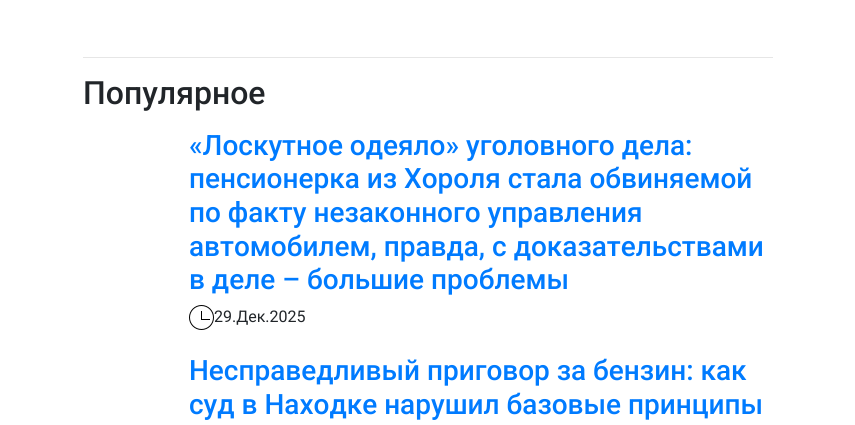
#include <cairo.h>
#include <math.h>
#include <stddef.h>


static void rgb(cairo_t *cr, int r, int g, int b)
{
	cairo_set_source_rgb(cr, r / 255.0, g / 255.0, b / 255.0);
}

static void face(cairo_t *cr, const char *family, double size, int italic, int bold)
{
	cairo_select_font_face(cr, family, italic ? CAIRO_FONT_SLANT_ITALIC : CAIRO_FONT_SLANT_NORMAL,
		bold ? CAIRO_FONT_WEIGHT_BOLD : CAIRO_FONT_WEIGHT_NORMAL);
	cairo_set_font_size(cr, size);
}

static void label(cairo_t *cr, double x, double y, const char *s)
{
	cairo_move_to(cr, x, y);
	cairo_show_text(cr, s);
}

static void rect(cairo_t *cr, double x, double y, double w, double h)
{
	cairo_rectangle(cr, x, y, w, h);
	cairo_fill(cr);
}

static void image(cairo_t *cr, const char *path, double x, double y, double w, double h)
{
	cairo_surface_t *image = cairo_image_surface_create_from_png(path);
	cairo_save(cr);
	cairo_set_source_surface(cr, image, x, y);
	cairo_rectangle(cr, x, y, w, h);
	cairo_fill(cr);
	cairo_restore(cr);
	cairo_surface_destroy(image);
}

static void draw(cairo_t *cr) {
	rgb(cr, 255, 255, 255);
	cairo_paint(cr);
	rgb(cr, 230, 230, 230);
	rect(cr, 83, 57, 690, 1);
	face(cr, "Roboto Medium", 32, 0, 0);
	rgb(cr, 33, 37, 41);
	label(cr, 83, 104, "Популярное");
	face(cr, "Roboto Medium", 28, 0, 0);
	rgb(cr, 0, 123, 255);
	label(cr, 189, 155, "«Лоскутное одеяло» уголовного дела:");
	label(cr, 189, 188, "пенсионерка из Хороля стала обвиняемой");
	label(cr, 189, 222, "по факту незаконного управления");
	label(cr, 189, 256, "автомобилем, правда, с доказательствами");
	label(cr, 189, 289, "в деле – большие проблемы");
	image(cr, "image0.png", 189, 305, 25, 25);
	face(cr, "Roboto", 16, 0, 0);
	rgb(cr, 33, 37, 41);
	label(cr, 214, 322, "29.Дек.2025");
	face(cr, "Roboto Medium", 28, 0, 0);
	rgb(cr, 0, 123, 255);
	label(cr, 189, 380, "Несправедливый приговор за бензин: как");
	label(cr, 189, 414, "суд в Находке нарушил базовые принципы");
}

int main(void) {
	cairo_surface_t *surface = cairo_image_surface_create(CAIRO_FORMAT_RGB24, 855, 425);
	cairo_t *cr = cairo_create(surface);
	cairo_font_options_t *options = cairo_font_options_create();
	cairo_font_options_set_hint_metrics(options, CAIRO_HINT_METRICS_OFF);
	cairo_font_options_set_hint_style(options, CAIRO_HINT_STYLE_NONE);
	cairo_set_font_options(cr, options);
	cairo_set_miter_limit(cr, 4);
	draw(cr);
	cairo_surface_write_to_png(surface, "render.png");
	cairo_font_options_destroy(options);
	cairo_destroy(cr);
	cairo_surface_destroy(surface);
	return 0;
}
